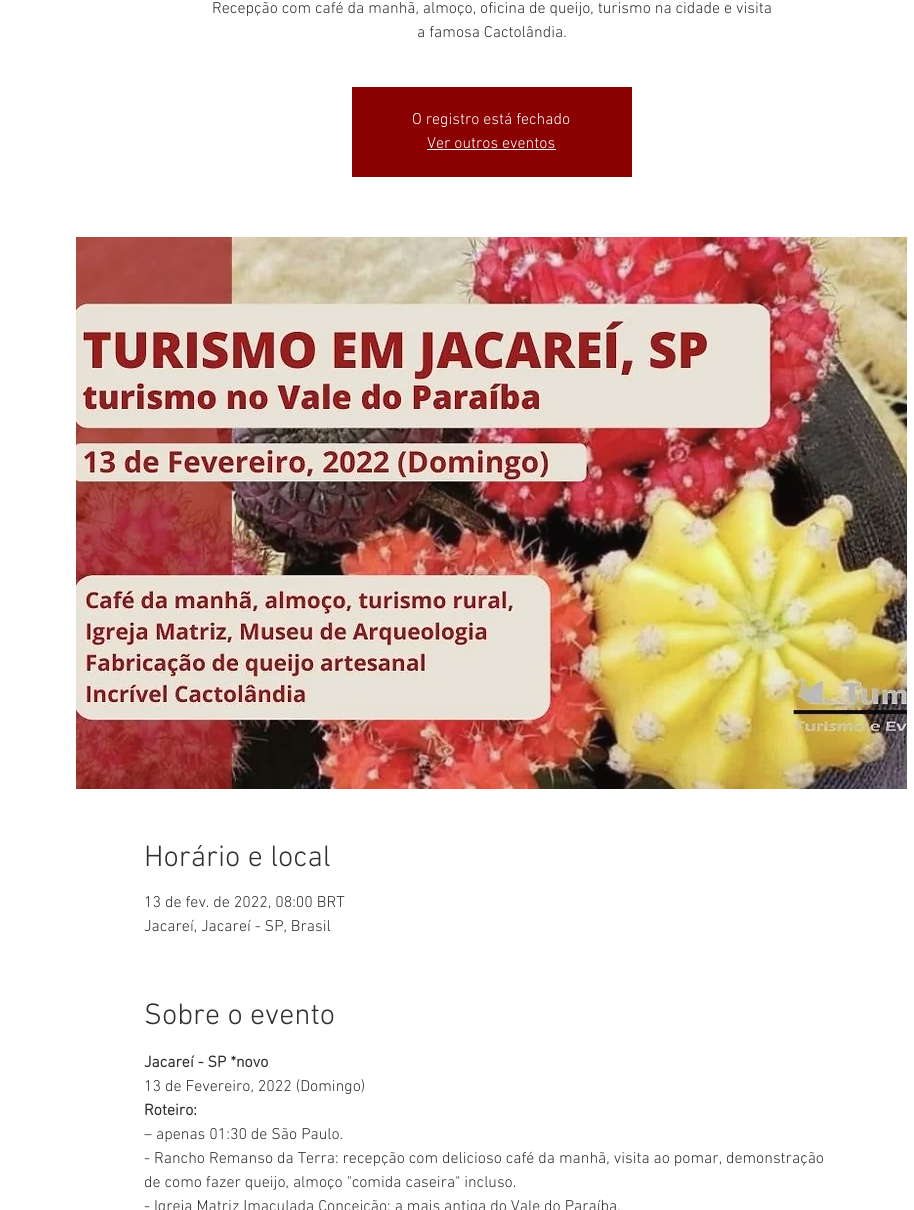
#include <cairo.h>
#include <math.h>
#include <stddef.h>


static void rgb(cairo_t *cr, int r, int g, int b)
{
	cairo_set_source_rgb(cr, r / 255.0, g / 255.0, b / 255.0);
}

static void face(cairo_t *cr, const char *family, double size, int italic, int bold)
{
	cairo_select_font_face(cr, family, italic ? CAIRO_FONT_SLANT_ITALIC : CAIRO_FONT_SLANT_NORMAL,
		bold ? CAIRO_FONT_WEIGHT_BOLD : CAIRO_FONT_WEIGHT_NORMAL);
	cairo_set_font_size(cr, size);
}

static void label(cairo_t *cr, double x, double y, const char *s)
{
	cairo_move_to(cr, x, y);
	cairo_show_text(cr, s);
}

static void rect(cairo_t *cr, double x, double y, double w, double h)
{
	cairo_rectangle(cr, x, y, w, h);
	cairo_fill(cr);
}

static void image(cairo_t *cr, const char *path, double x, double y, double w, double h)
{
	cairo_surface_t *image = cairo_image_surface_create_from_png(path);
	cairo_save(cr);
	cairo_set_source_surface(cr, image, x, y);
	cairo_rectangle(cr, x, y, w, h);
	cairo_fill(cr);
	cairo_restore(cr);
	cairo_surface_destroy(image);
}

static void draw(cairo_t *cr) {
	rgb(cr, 255, 255, 255);
	cairo_paint(cr);
	face(cr, "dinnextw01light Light", 16, 0, 0);
	rgb(cr, 48, 48, 48);
	label(cr, 212, 13, "Recepção com café da manhã, almoço, oficina de queijo, turismo na cidade e visita");
	label(cr, 417, 37, "a famosa Cactolândia.");
	rgb(cr, 139, 0, 0);
	rect(cr, 352, 87, 280, 90);
	rgb(cr, 255, 255, 255);
	label(cr, 412, 124, "O registro está fechado");
	label(cr, 427, 148, "Ver outros eventos");
	rect(cr, 427, 149, 129, 1);
	image(cr, "image0.png", 76, 237, 831, 552);
	face(cr, "dinnextw01light Light", 30, 0, 0);
	rgb(cr, 48, 48, 48);
	label(cr, 144, 866, "Horário e local");
	face(cr, "dinnextw01light Light", 16, 0, 0);
	label(cr, 144, 907, "13 de fev. de 2022, 08:00 BRT");
	label(cr, 144, 931, "Jacareí, Jacareí - SP, Brasil");
	face(cr, "dinnextw01light Light", 30, 0, 0);
	label(cr, 144, 1024, "Sobre o evento");
	face(cr, "dinnextw01light", 16, 0, 1);
	label(cr, 144, 1067, "Jacareí - SP *novo");
	face(cr, "dinnextw01light Light", 16, 0, 0);
	label(cr, 144, 1091, "13 de Fevereiro, 2022 (Domingo)");
	face(cr, "dinnextw01light", 16, 0, 1);
	label(cr, 144, 1115, "Roteiro:");
	face(cr, "dinnextw01light Light", 16, 0, 0);
	label(cr, 144, 1139, "– apenas 01:30 de São Paulo.");
	label(cr, 144, 1163, "- Rancho Remanso da Terra: recepção com delicioso café da manhã, visita ao pomar, demonstração");
	label(cr, 144, 1187, "de como fazer queijo, almoço \"comida caseira\" incluso.");
	label(cr, 144, 1211, "- Igreja Matriz Imaculada Conceição: a mais antiga do Vale do Paraíba.");
}

int main(void) {
	cairo_surface_t *surface = cairo_image_surface_create(CAIRO_FORMAT_RGB24, 914, 1210);
	cairo_t *cr = cairo_create(surface);
	cairo_font_options_t *options = cairo_font_options_create();
	cairo_font_options_set_hint_metrics(options, CAIRO_HINT_METRICS_OFF);
	cairo_font_options_set_hint_style(options, CAIRO_HINT_STYLE_NONE);
	cairo_set_font_options(cr, options);
	cairo_set_miter_limit(cr, 4);
	draw(cr);
	cairo_surface_write_to_png(surface, "render.png");
	cairo_font_options_destroy(options);
	cairo_destroy(cr);
	cairo_surface_destroy(surface);
	return 0;
}
